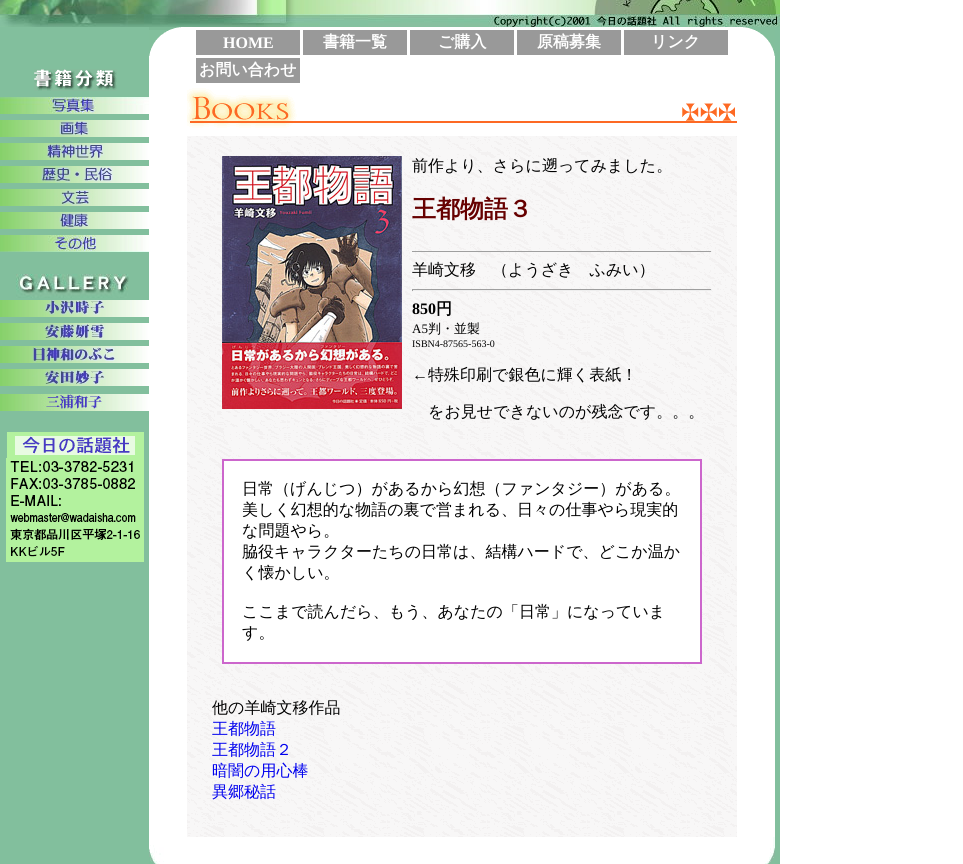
#include <cairo.h>
#include <math.h>
#include <stddef.h>


static void rgb(cairo_t *cr, int r, int g, int b)
{
	cairo_set_source_rgb(cr, r / 255.0, g / 255.0, b / 255.0);
}

static void face(cairo_t *cr, const char *family, double size, int italic, int bold)
{
	cairo_select_font_face(cr, family, italic ? CAIRO_FONT_SLANT_ITALIC : CAIRO_FONT_SLANT_NORMAL,
		bold ? CAIRO_FONT_WEIGHT_BOLD : CAIRO_FONT_WEIGHT_NORMAL);
	cairo_set_font_size(cr, size);
}

static void label(cairo_t *cr, double x, double y, const char *s)
{
	cairo_move_to(cr, x, y);
	cairo_show_text(cr, s);
}

static void rect(cairo_t *cr, double x, double y, double w, double h)
{
	cairo_rectangle(cr, x, y, w, h);
	cairo_fill(cr);
}

static void image(cairo_t *cr, const char *path, double x, double y, double w, double h)
{
	cairo_surface_t *image = cairo_image_surface_create_from_png(path);
	cairo_save(cr);
	cairo_set_source_surface(cr, image, x, y);
	cairo_rectangle(cr, x, y, w, h);
	cairo_fill(cr);
	cairo_restore(cr);
	cairo_surface_destroy(image);
}

static void draw(cairo_t *cr) {
	rgb(cr, 255, 255, 255);
	cairo_paint(cr);
	image(cr, "image0.png", 0, 0, 592, 14);
	image(cr, "image1.png", 592, 0, 188, 14);
	image(cr, "image2.png", 0, 14, 780, 13);
	rgb(cr, 130, 191, 157);
	rect(cr, 0, 27, 149, 837);
	image(cr, "image3.png", 34, 69, 83, 22);
	image(cr, "image4.png", 0, 97, 149, 17);
	image(cr, "image5.png", 0, 120, 149, 17);
	image(cr, "image6.png", 0, 143, 149, 17);
	image(cr, "image7.png", 0, 166, 149, 17);
	image(cr, "image8.png", 0, 189, 149, 17);
	image(cr, "image9.png", 0, 212, 149, 17);
	image(cr, "image10.png", 0, 235, 149, 17);
	image(cr, "image11.png", 16, 274, 113, 24);
	image(cr, "image12.png", 0, 300, 149, 17);
	image(cr, "image13.png", 0, 323, 149, 17);
	image(cr, "image14.png", 0, 346, 149, 17);
	image(cr, "image15.png", 0, 369, 149, 17);
	image(cr, "image16.png", 0, 394, 149, 17);
	image(cr, "image17.png", 6, 432, 138, 130);
	image(cr, "image18.png", 149, 27, 32, 29);
	rgb(cr, 153, 153, 153);
	rect(cr, 196, 30, 104, 25);
	face(cr, "Liberation Serif", 16, 0, 1);
	rgb(cr, 255, 255, 255);
	label(cr, 223, 48, "HOME");
	rgb(cr, 153, 153, 153);
	rect(cr, 303, 30, 104, 25);
	face(cr, "WenQuanYi Zen Hei", 16, 0, 1);
	rgb(cr, 255, 255, 255);
	label(cr, 323, 47, "書籍一覧");
	rgb(cr, 153, 153, 153);
	rect(cr, 410, 30, 104, 25);
	rgb(cr, 255, 255, 255);
	label(cr, 438, 47, "ご購入");
	rgb(cr, 153, 153, 153);
	rect(cr, 517, 30, 104, 25);
	rgb(cr, 255, 255, 255);
	label(cr, 537, 47, "原稿募集");
	rgb(cr, 153, 153, 153);
	rect(cr, 624, 30, 104, 25);
	rgb(cr, 255, 255, 255);
	label(cr, 651, 47, "リンク");
	rgb(cr, 153, 153, 153);
	rect(cr, 196, 58, 104, 25);
	rgb(cr, 255, 255, 255);
	label(cr, 199, 75, "お問い合わせ");
	image(cr, "image19.png", 743, 27, 32, 29);
	rgb(cr, 130, 191, 157);
	rect(cr, 775, 27, 5, 837);
	image(cr, "image20.png", 187, 88, 550, 40);
	image(cr, "image21.png", 187, 136, 550, 701);
	image(cr, "image22.png", 222, 156, 180, 253);
	face(cr, "WenQuanYi Zen Hei Medium", 16, 0, 0);
	rgb(cr, 0, 0, 0);
	label(cr, 412, 171, "前作より、さらに遡ってみました。");
	face(cr, "WenQuanYi Zen Hei", 24, 0, 1);
	rgb(cr, 102, 0, 0);
	label(cr, 412, 217, "王都物語３");
	rgb(cr, 159, 159, 159);
	rect(cr, 412, 251, 300, 1);
	rgb(cr, 238, 238, 238);
	rect(cr, 711, 251, 1, 1);
	face(cr, "WenQuanYi Zen Hei Medium", 16, 0, 0);
	rgb(cr, 0, 0, 0);
	label(cr, 412, 275, "羊崎文移　（ようざき　ふみい）");
	rgb(cr, 159, 159, 159);
	rect(cr, 412, 289, 300, 1);
	rgb(cr, 238, 238, 238);
	rect(cr, 711, 289, 1, 2);
	rect(cr, 412, 290, 300, 1);
	rgb(cr, 159, 159, 159);
	rect(cr, 412, 289, 1, 2);
	face(cr, "Liberation Serif", 16, 0, 1);
	rgb(cr, 0, 0, 0);
	label(cr, 412, 314, "850");
	face(cr, "WenQuanYi Zen Hei", 16, 0, 1);
	label(cr, 436, 314, "円");
	face(cr, "Liberation Serif", 13, 0, 0);
	label(cr, 412, 333, "A5");
	face(cr, "WenQuanYi Zen Hei Medium", 13, 0, 0);
	label(cr, 428, 333, "判・並製");
	face(cr, "Liberation Serif", 10, 0, 0);
	label(cr, 412, 347, "ISBN4-87565-563-0");
	face(cr, "Liberation Serif", 16, 0, 0);
	label(cr, 412, 380, "←");
	face(cr, "WenQuanYi Zen Hei Medium", 16, 0, 0);
	label(cr, 428, 380, "特殊印刷で銀色に輝く表紙！");
	label(cr, 428, 417, "をお見せできないのが残念です。。。");
	rgb(cr, 204, 102, 204);
	rect(cr, 222, 459, 480, 2);
	rgb(cr, 255, 255, 255);
	rect(cr, 224, 461, 476, 18);
	rgb(cr, 204, 102, 204);
	rect(cr, 222, 461, 2, 201);
	rgb(cr, 255, 255, 255);
	rect(cr, 224, 479, 476, 165);
	rgb(cr, 204, 102, 204);
	rect(cr, 700, 461, 2, 201);
	rgb(cr, 0, 0, 0);
	label(cr, 242, 494, "日常（げんじつ）があるから幻想（ファンタジー）がある。");
	label(cr, 242, 515, "美しく幻想的な物語の裏で営まれる、日々の仕事やら現実的");
	label(cr, 242, 536, "な問題やら。");
	label(cr, 242, 557, "脇役キャラクターたちの日常は、結構ハードで、どこか温か");
	label(cr, 242, 578, "く懐かしい。");
	label(cr, 242, 617, "ここまで読んだら、もう、あなたの「日常」になっていま");
	label(cr, 242, 638, "す。");
	rgb(cr, 255, 255, 255);
	rect(cr, 224, 644, 476, 18);
	rgb(cr, 204, 102, 204);
	rect(cr, 222, 662, 480, 2);
	rgb(cr, 0, 0, 0);
	label(cr, 212, 713, "他の羊崎文移作品");
	rgb(cr, 0, 0, 238);
	label(cr, 212, 734, "王都物語");
	label(cr, 212, 755, "王都物語２");
	label(cr, 212, 776, "暗闇の用心棒");
	label(cr, 212, 797, "異郷秘話");
	image(cr, "image23.png", 149, 845, 15, 19);
	image(cr, "image24.png", 765, 837, 10, 27);
}

int main(void) {
	cairo_surface_t *surface = cairo_image_surface_create(CAIRO_FORMAT_RGB24, 963, 864);
	cairo_t *cr = cairo_create(surface);
	cairo_font_options_t *options = cairo_font_options_create();
	cairo_font_options_set_hint_metrics(options, CAIRO_HINT_METRICS_OFF);
	cairo_font_options_set_hint_style(options, CAIRO_HINT_STYLE_NONE);
	cairo_set_font_options(cr, options);
	cairo_set_miter_limit(cr, 4);
	draw(cr);
	cairo_surface_write_to_png(surface, "render.png");
	cairo_font_options_destroy(options);
	cairo_destroy(cr);
	cairo_surface_destroy(surface);
	return 0;
}
